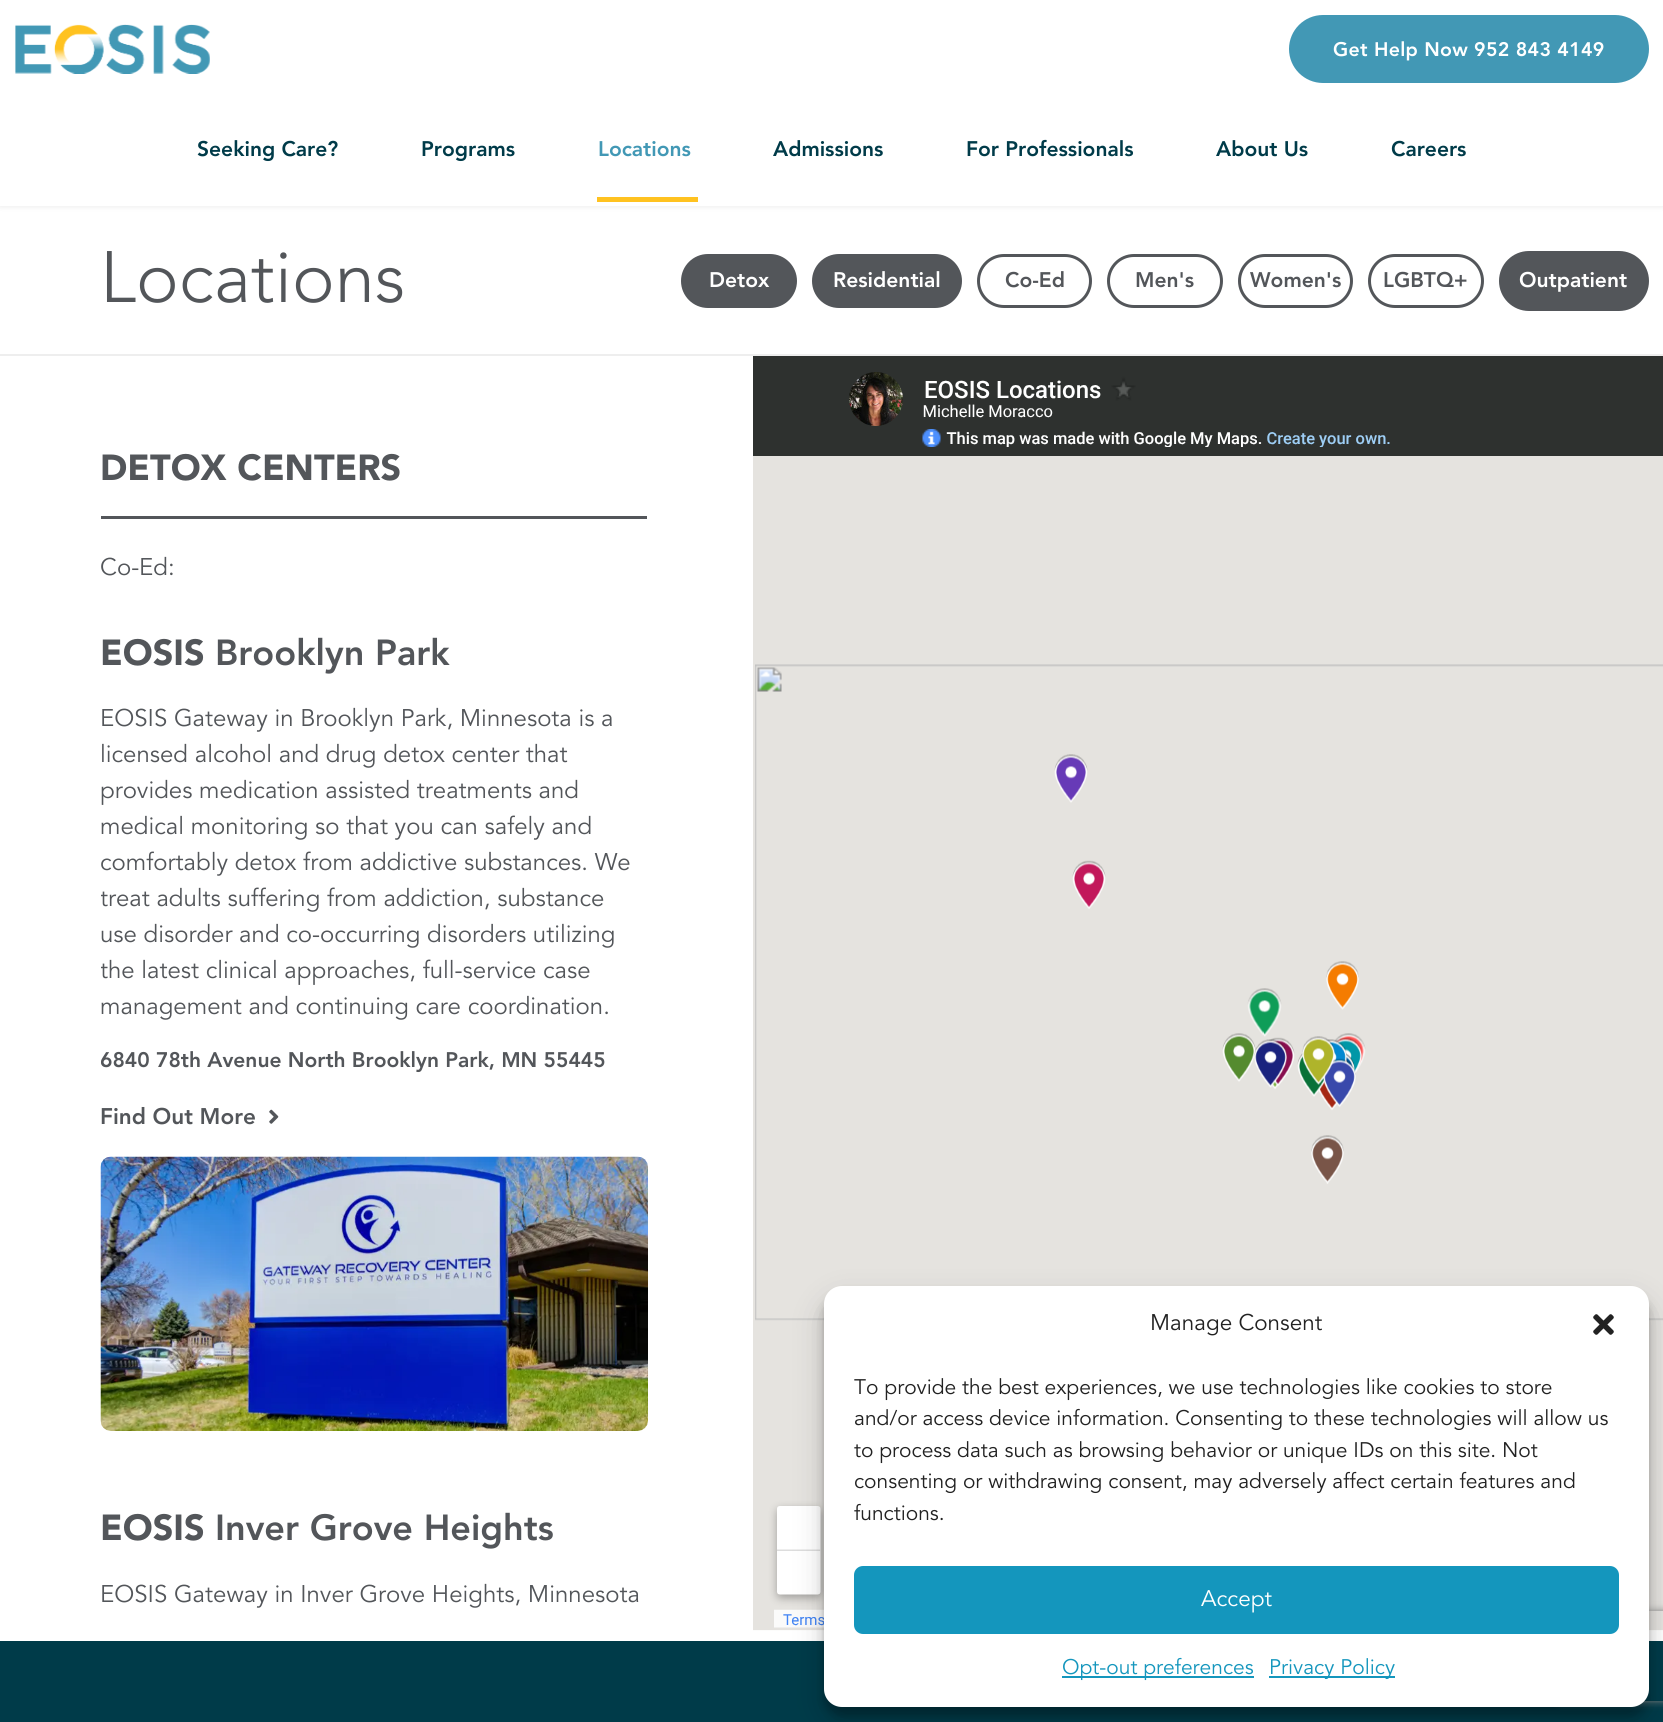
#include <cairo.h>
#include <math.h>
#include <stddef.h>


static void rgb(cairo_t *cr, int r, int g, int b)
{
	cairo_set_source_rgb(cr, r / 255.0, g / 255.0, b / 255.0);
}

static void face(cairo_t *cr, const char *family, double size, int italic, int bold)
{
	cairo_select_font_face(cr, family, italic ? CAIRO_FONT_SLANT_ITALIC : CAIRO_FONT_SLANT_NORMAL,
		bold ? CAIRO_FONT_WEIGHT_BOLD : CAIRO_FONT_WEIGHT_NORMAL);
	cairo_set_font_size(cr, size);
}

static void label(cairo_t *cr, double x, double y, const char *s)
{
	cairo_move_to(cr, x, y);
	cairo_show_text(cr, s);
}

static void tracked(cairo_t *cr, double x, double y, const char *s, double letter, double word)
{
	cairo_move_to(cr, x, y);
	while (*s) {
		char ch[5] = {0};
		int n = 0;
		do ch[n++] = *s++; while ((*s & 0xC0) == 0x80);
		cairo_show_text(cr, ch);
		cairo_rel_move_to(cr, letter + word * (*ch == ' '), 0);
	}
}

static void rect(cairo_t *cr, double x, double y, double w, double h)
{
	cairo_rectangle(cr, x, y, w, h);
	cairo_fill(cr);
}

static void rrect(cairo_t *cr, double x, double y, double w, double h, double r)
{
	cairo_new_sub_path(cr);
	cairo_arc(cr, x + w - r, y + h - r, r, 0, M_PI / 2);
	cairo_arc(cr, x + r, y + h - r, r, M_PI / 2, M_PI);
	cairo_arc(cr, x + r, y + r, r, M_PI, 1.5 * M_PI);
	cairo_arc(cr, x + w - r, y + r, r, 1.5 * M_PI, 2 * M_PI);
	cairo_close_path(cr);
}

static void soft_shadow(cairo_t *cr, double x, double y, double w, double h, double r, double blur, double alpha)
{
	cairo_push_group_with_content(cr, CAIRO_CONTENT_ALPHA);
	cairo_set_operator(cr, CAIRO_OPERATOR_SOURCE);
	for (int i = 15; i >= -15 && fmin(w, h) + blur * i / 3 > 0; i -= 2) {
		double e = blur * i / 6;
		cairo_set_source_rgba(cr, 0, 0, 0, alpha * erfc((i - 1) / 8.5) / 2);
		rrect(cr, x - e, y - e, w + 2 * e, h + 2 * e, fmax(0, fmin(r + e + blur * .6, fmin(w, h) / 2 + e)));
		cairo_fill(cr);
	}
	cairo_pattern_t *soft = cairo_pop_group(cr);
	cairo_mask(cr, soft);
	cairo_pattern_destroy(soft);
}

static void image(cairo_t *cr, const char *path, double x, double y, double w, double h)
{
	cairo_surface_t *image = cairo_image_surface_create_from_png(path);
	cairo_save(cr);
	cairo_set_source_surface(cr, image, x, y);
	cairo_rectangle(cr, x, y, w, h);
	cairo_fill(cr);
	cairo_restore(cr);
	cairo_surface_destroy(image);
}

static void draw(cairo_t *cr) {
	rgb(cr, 255, 255, 255);
	cairo_paint(cr);
	rgb(cr, 0, 0, 0);
	soft_shadow(cr, 0, 0, 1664, 206, 0, 3, 0.1);
	rgb(cr, 255, 255, 255);
	rect(cr, 0, 0, 1663, 206);
	image(cr, "image0.png", 15, 24, 195, 50);
	rgb(cr, 66, 152, 181);
	rrect(cr, 1289, 15, 360, 68, 34);
	cairo_fill(cr);
	face(cr, "Avenir Black", 19.5, 0, 0);
	rgb(cr, 255, 255, 255);
	tracked(cr, 1333, 56, "Get Help Now 952 843 4149", 0.3, 0);
	face(cr, "Avenir Black", 21, 0, 0);
	rgb(cr, 0, 59, 73);
	label(cr, 197, 156, "Seeking Care?");
	label(cr, 421, 156, "Programs");
	rgb(cr, 255, 194, 32);
	rect(cr, 597, 197, 101, 5);
	rgb(cr, 66, 152, 181);
	label(cr, 598, 156, "Locations");
	rgb(cr, 0, 59, 73);
	label(cr, 773, 156, "Admissions");
	label(cr, 966, 156, "For Professionals");
	label(cr, 1216, 156, "About Us");
	label(cr, 1391, 156, "Careers");
	rgb(cr, 238, 238, 238);
	rect(cr, 0, 354, 1663, 2);
	face(cr, "Avenir Light", 72, 0, 0);
	rgb(cr, 83, 86, 90);
	label(cr, 100, 302, "Locations");
	rrect(cr, 681, 254, 116, 54, 27);
	cairo_fill(cr);
	face(cr, "Avenir Black", 21, 0, 0);
	rgb(cr, 255, 255, 255);
	label(cr, 709, 287, "Detox");
	rgb(cr, 83, 86, 90);
	rrect(cr, 812, 254, 150, 54, 27);
	cairo_fill(cr);
	rgb(cr, 255, 255, 255);
	label(cr, 833, 287, "Residential");
	rrect(cr, 978.5, 255.5, 112, 51, 25.5);
	rgb(cr, 83, 86, 90);
	cairo_set_line_width(cr, 3);
	cairo_stroke(cr);
	label(cr, 1005, 287, "Co-Ed");
	rrect(cr, 1108.5, 255.5, 113, 51, 25.5);
	cairo_stroke(cr);
	label(cr, 1135, 287, "Men's");
	rrect(cr, 1239.5, 255.5, 112, 51, 25.5);
	cairo_stroke(cr);
	label(cr, 1250, 287, "Women's");
	rrect(cr, 1369.5, 255.5, 113, 51, 25.5);
	cairo_stroke(cr);
	label(cr, 1383, 287, "LGBTQ+");
	rrect(cr, 1499, 251, 150, 60, 30);
	cairo_fill(cr);
	rgb(cr, 255, 255, 255);
	label(cr, 1519, 287, "Outpatient");
	rgb(cr, 83, 86, 90);
	rect(cr, 101, 516, 546, 3);
	face(cr, "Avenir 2 Black", 36, 0, 0);
	label(cr, 100, 480, "DETOX CENTERS");
	face(cr, "Avenir", 24, 0, 0);
	label(cr, 100, 575, "Co-Ed:");
	face(cr, "Avenir 2 Black", 36, 0, 0);
	label(cr, 100, 665, "EOSIS");
	face(cr, "Avenir Black", 36, 0, 0);
	label(cr, 215, 665, "Brooklyn Park");
	face(cr, "Avenir", 24, 0, 0);
	label(cr, 100, 726, "EOSIS Gateway in Brooklyn Park, Minnesota is a");
	label(cr, 100, 762, "licensed alcohol and drug detox center that");
	label(cr, 100, 798, "provides medication assisted treatments and");
	label(cr, 100, 834, "medical monitoring so that you can safely and");
	label(cr, 100, 870, "comfortably detox from addictive substances. We");
	cairo_save(cr);
	cairo_rectangle(cr, 101, 416, 607, 1200);
	cairo_clip(cr);
	label(cr, 100, 906, "treat adults suffering from addiction, substance");
	cairo_restore(cr);
	label(cr, 100, 942, "use disorder and co-occurring disorders utilizing");
	cairo_save(cr);
	cairo_rectangle(cr, 101, 416, 607, 1200);
	cairo_clip(cr);
	label(cr, 100, 978, "the latest clinical approaches, full-service case");
	cairo_restore(cr);
	label(cr, 100, 1014, "management and continuing care coordination.");
	cairo_save(cr);
	cairo_rectangle(cr, 101, 416, 607, 1200);
	cairo_clip(cr);
	face(cr, "Avenir Black", 21, 0, 0);
	label(cr, 100, 1067, "6840 78th Avenue North Brooklyn Park, MN 55445");
	cairo_restore(cr);
	face(cr, "Avenir Black", 22.5, 0, 0);
	label(cr, 100, 1124, "Find Out More");
	image(cr, "image1.png", 269, 1109, 10, 15);
	image(cr, "image2.png", 100, 1156, 548, 275);
	face(cr, "Avenir 2 Black", 36, 0, 0);
	label(cr, 100, 1540, "EOSIS");
	face(cr, "Avenir Black", 36, 0, 0);
	label(cr, 215, 1540, "Inver Grove Heights");
	face(cr, "Avenir", 24, 0, 0);
	label(cr, 100, 1602, "EOSIS Gateway in Inver Grove Heights, Minnesota");
	image(cr, "image3.png", 753, 356, 910, 1275);
	rgb(cr, 0, 59, 73);
	rect(cr, 0, 1641, 1663, 81);
	rgb(cr, 0, 0, 0);
	soft_shadow(cr, 824, 1295, 825, 421, 18, 4.5, 0.23);
	soft_shadow(cr, 824, 1301, 825, 421, 18, 15, 0.19);
	cairo_save(cr);
	cairo_set_fill_rule(cr, CAIRO_FILL_RULE_EVEN_ODD);
	cairo_new_path(cr);
	cairo_move_to(cr, 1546, 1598);
	cairo_line_to(cr, 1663, 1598);
	cairo_line_to(cr, 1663, 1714);
	cairo_line_to(cr, 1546, 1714);
	cairo_close_path(cr);
	cairo_move_to(cr, 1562, 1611);
	cairo_line_to(cr, 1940, 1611);
	cairo_curve_to(cr, 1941.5, 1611, 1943, 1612.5, 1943, 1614);
	cairo_line_to(cr, 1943, 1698);
	cairo_curve_to(cr, 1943, 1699.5, 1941.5, 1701, 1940, 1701);
	cairo_line_to(cr, 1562, 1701);
	cairo_curve_to(cr, 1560.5, 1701, 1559, 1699.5, 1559, 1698);
	cairo_line_to(cr, 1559, 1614);
	cairo_curve_to(cr, 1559, 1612.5, 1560.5, 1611, 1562, 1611);
	cairo_close_path(cr);
	cairo_clip(cr);
	rgb(cr, 128, 128, 128);
	soft_shadow(cr, 1559, 1611, 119, 90, 3, 4, 1);
	cairo_restore(cr);
	rgb(cr, 255, 255, 255);
	rrect(cr, 824, 1286, 825, 421, 18);
	cairo_fill(cr);
	face(cr, "Avenir", 22.5, 0, 0);
	rgb(cr, 34, 34, 34);
	label(cr, 1150, 1330, "Manage Consent");
	image(cr, "image4.png", 1593, 1314, 21, 21);
	face(cr, "Avenir", 21, 0, 0);
	label(cr, 854, 1394, "To provide the best experiences, we use technologies like cookies to store");
	label(cr, 854, 1425, "and/or access device information. Consenting to these technologies will allow us");
	label(cr, 854, 1457, "to process data such as browsing behavior or unique IDs on this site. Not");
	label(cr, 854, 1488, "consenting or withdrawing consent, may adversely affect certain features and");
	label(cr, 854, 1520, "functions.");
	rgb(cr, 20, 150, 189);
	rrect(cr, 855, 1567, 763, 66, 8);
	cairo_fill_preserve(cr);
	cairo_set_line_width(cr, 2);
	cairo_stroke(cr);
	face(cr, "Avenir", 22.5, 0, 0);
	rgb(cr, 255, 255, 255);
	label(cr, 1201, 1606, "Accept");
	rgb(cr, 20, 150, 189);
	rect(cr, 1062, 1676, 192, 2);
	face(cr, "Avenir", 21, 0, 0);
	label(cr, 1062, 1674, "Opt-out preferences");
	rect(cr, 1269, 1676, 126, 2);
	label(cr, 1269, 1674, "Privacy Policy");
}

int main(void) {
	cairo_surface_t *surface = cairo_image_surface_create(CAIRO_FORMAT_RGB24, 1663, 1722);
	cairo_t *cr = cairo_create(surface);
	cairo_font_options_t *options = cairo_font_options_create();
	cairo_font_options_set_hint_metrics(options, CAIRO_HINT_METRICS_OFF);
	cairo_font_options_set_hint_style(options, CAIRO_HINT_STYLE_NONE);
	cairo_set_font_options(cr, options);
	cairo_set_miter_limit(cr, 4);
	draw(cr);
	cairo_surface_write_to_png(surface, "render.png");
	cairo_font_options_destroy(options);
	cairo_destroy(cr);
	cairo_surface_destroy(surface);
	return 0;
}
